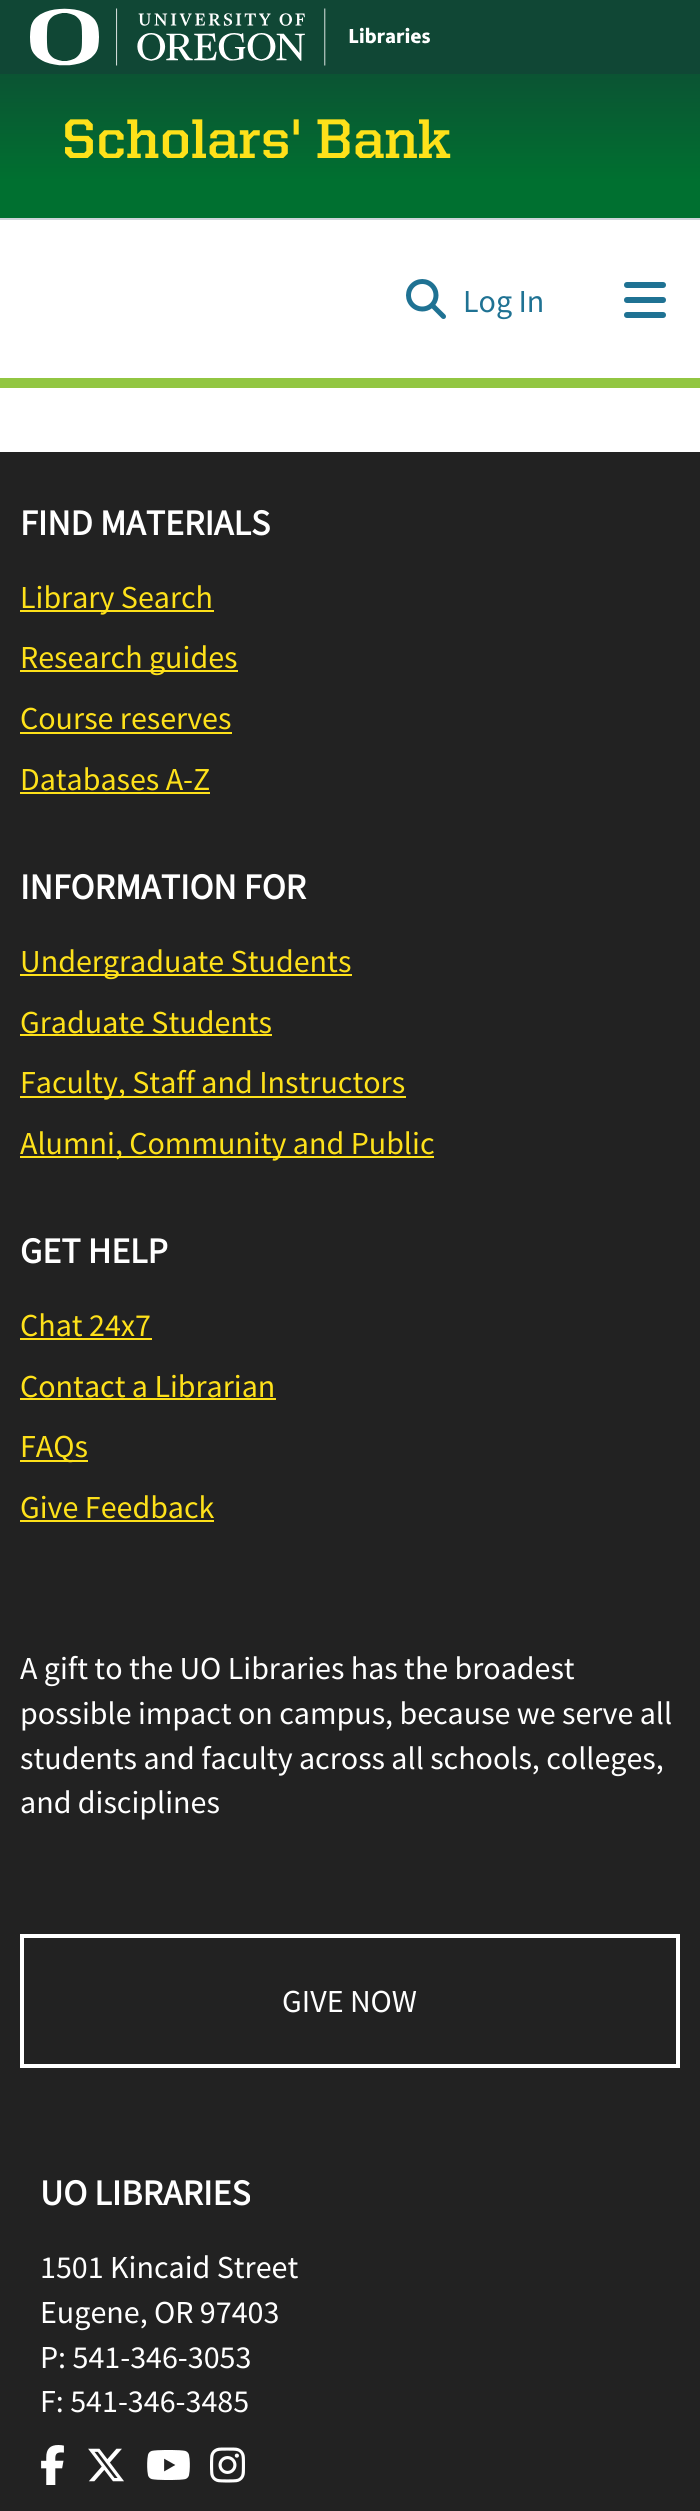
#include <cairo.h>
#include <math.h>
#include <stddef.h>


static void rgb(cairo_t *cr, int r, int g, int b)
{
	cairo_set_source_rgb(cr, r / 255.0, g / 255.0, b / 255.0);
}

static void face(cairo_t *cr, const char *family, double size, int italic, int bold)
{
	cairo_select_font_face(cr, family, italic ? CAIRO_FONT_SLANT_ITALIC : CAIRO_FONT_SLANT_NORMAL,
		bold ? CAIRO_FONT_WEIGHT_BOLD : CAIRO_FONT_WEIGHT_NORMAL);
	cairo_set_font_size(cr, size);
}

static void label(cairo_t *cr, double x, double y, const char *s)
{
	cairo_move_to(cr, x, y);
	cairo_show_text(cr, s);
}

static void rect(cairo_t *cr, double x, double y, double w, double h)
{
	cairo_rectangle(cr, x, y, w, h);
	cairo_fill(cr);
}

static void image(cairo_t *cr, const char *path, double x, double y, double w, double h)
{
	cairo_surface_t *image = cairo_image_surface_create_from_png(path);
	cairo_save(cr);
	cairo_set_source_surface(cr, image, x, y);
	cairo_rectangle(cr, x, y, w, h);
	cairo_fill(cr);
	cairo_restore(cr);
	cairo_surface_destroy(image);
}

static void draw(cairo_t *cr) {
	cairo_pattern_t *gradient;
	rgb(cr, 255, 255, 255);
	cairo_paint(cr);
	rgb(cr, 146, 198, 66);
	rect(cr, 0, 378, 700, 10);
	rgb(cr, 16, 71, 53);
	rect(cr, 0, 0, 700, 74);
	image(cr, "image0.png", 30, 8, 400, 58);
	gradient = cairo_pattern_create_linear(350, 218, 350, 24);
	cairo_pattern_add_color_stop_rgba(gradient, 0.19, 0, 0.439, 0.188, 1);
	cairo_pattern_add_color_stop_rgba(gradient, 1, 0.063, 0.278, 0.208, 1);
	cairo_set_source(cr, gradient);
	cairo_pattern_destroy(gradient);
	rect(cr, 0, 74, 700, 144);
	face(cr, "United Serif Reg", 56, 0, 1);
	rgb(cr, 254, 225, 26);
	label(cr, 62, 158, "Scholars' Bank");
	rgb(cr, 206, 212, 218);
	rect(cr, 0, 218, 700, 2);
	image(cr, "image1.png", 406, 279, 40, 40);
	face(cr, "Source Sans Pro", 32, 0, 0);
	rgb(cr, 31, 114, 147);
	label(cr, 463, 312, "Log In");
	image(cr, "image2.png", 624, 282, 42, 36);
	rgb(cr, 34, 34, 34);
	rect(cr, 0, 452, 700, 2059);
	face(cr, "Source Sans Pro", 36, 0, 1);
	rgb(cr, 255, 255, 255);
	label(cr, 20, 535, "FIND MATERIALS");
	rgb(cr, 254, 225, 26);
	rect(cr, 20, 610, 194, 2);
	face(cr, "Source Sans Pro", 32, 0, 0);
	label(cr, 20, 608, "Library Search");
	rect(cr, 20, 670, 218, 2);
	label(cr, 20, 668, "Research guides");
	label(cr, 20, 729, "Course reserves");
	rect(cr, 20, 732, 212, 2);
	label(cr, 20, 790, "Databases A-Z");
	rect(cr, 20, 792, 190, 2);
	face(cr, "Source Sans Pro", 36, 0, 1);
	rgb(cr, 255, 255, 255);
	label(cr, 20, 899, "INFORMATION FOR");
	rgb(cr, 254, 225, 26);
	rect(cr, 20, 974, 332, 2);
	face(cr, "Source Sans Pro", 32, 0, 0);
	label(cr, 20, 972, "Undergraduate Students");
	label(cr, 20, 1033, "Graduate Students");
	rect(cr, 20, 1034, 252, 2);
	rect(cr, 20, 1096, 386, 2);
	label(cr, 20, 1093, "Faculty, Staff and Instructors");
	rect(cr, 20, 1156, 414, 2);
	label(cr, 20, 1154, "Alumni, Community and Public");
	face(cr, "Source Sans Pro", 36, 0, 1);
	rgb(cr, 255, 255, 255);
	label(cr, 20, 1263, "GET HELP");
	face(cr, "Source Sans Pro", 32, 0, 0);
	rgb(cr, 254, 225, 26);
	label(cr, 20, 1336, "Chat 24x7");
	rect(cr, 20, 1338, 132, 2);
	label(cr, 20, 1397, "Contact a Librarian");
	rect(cr, 20, 1398, 256, 2);
	rect(cr, 20, 1460, 68, 2);
	label(cr, 20, 1457, "FAQs");
	label(cr, 20, 1518, "Give Feedback");
	rect(cr, 20, 1520, 194, 2);
	rgb(cr, 255, 255, 255);
	label(cr, 20, 1679, "A gift to the UO Libraries has the broadest");
	label(cr, 20, 1724, "possible impact on campus, because we serve all");
	label(cr, 20, 1769, "students and faculty across all schools, colleges,");
	label(cr, 20, 1813, "and disciplines");
	cairo_rectangle(cr, 22, 1936, 656, 130);
	cairo_set_line_width(cr, 4);
	cairo_stroke(cr);
	label(cr, 282, 2012, "GIVE NOW");
	face(cr, "Source Sans Pro", 36, 0, 1);
	label(cr, 40, 2205, "UO LIBRARIES");
	face(cr, "Source Sans Pro", 32, 0, 0);
	label(cr, 40, 2278, "1501 Kincaid Street");
	label(cr, 40, 2323, "Eugene, OR 97403");
	label(cr, 40, 2368, "P: 541-346-3053");
	label(cr, 40, 2412, "F: 541-346-3485");
	image(cr, "image3.png", 41, 2445, 23, 40);
	image(cr, "image4.png", 88, 2448, 36, 34);
	image(cr, "image5.png", 147, 2450, 43, 30);
	image(cr, "image6.png", 210, 2447, 35, 36);
}

int main(void) {
	cairo_surface_t *surface = cairo_image_surface_create(CAIRO_FORMAT_RGB24, 700, 2511);
	cairo_t *cr = cairo_create(surface);
	cairo_font_options_t *options = cairo_font_options_create();
	cairo_font_options_set_hint_metrics(options, CAIRO_HINT_METRICS_OFF);
	cairo_font_options_set_hint_style(options, CAIRO_HINT_STYLE_NONE);
	cairo_set_font_options(cr, options);
	cairo_set_miter_limit(cr, 4);
	draw(cr);
	cairo_surface_write_to_png(surface, "render.png");
	cairo_font_options_destroy(options);
	cairo_destroy(cr);
	cairo_surface_destroy(surface);
	return 0;
}
